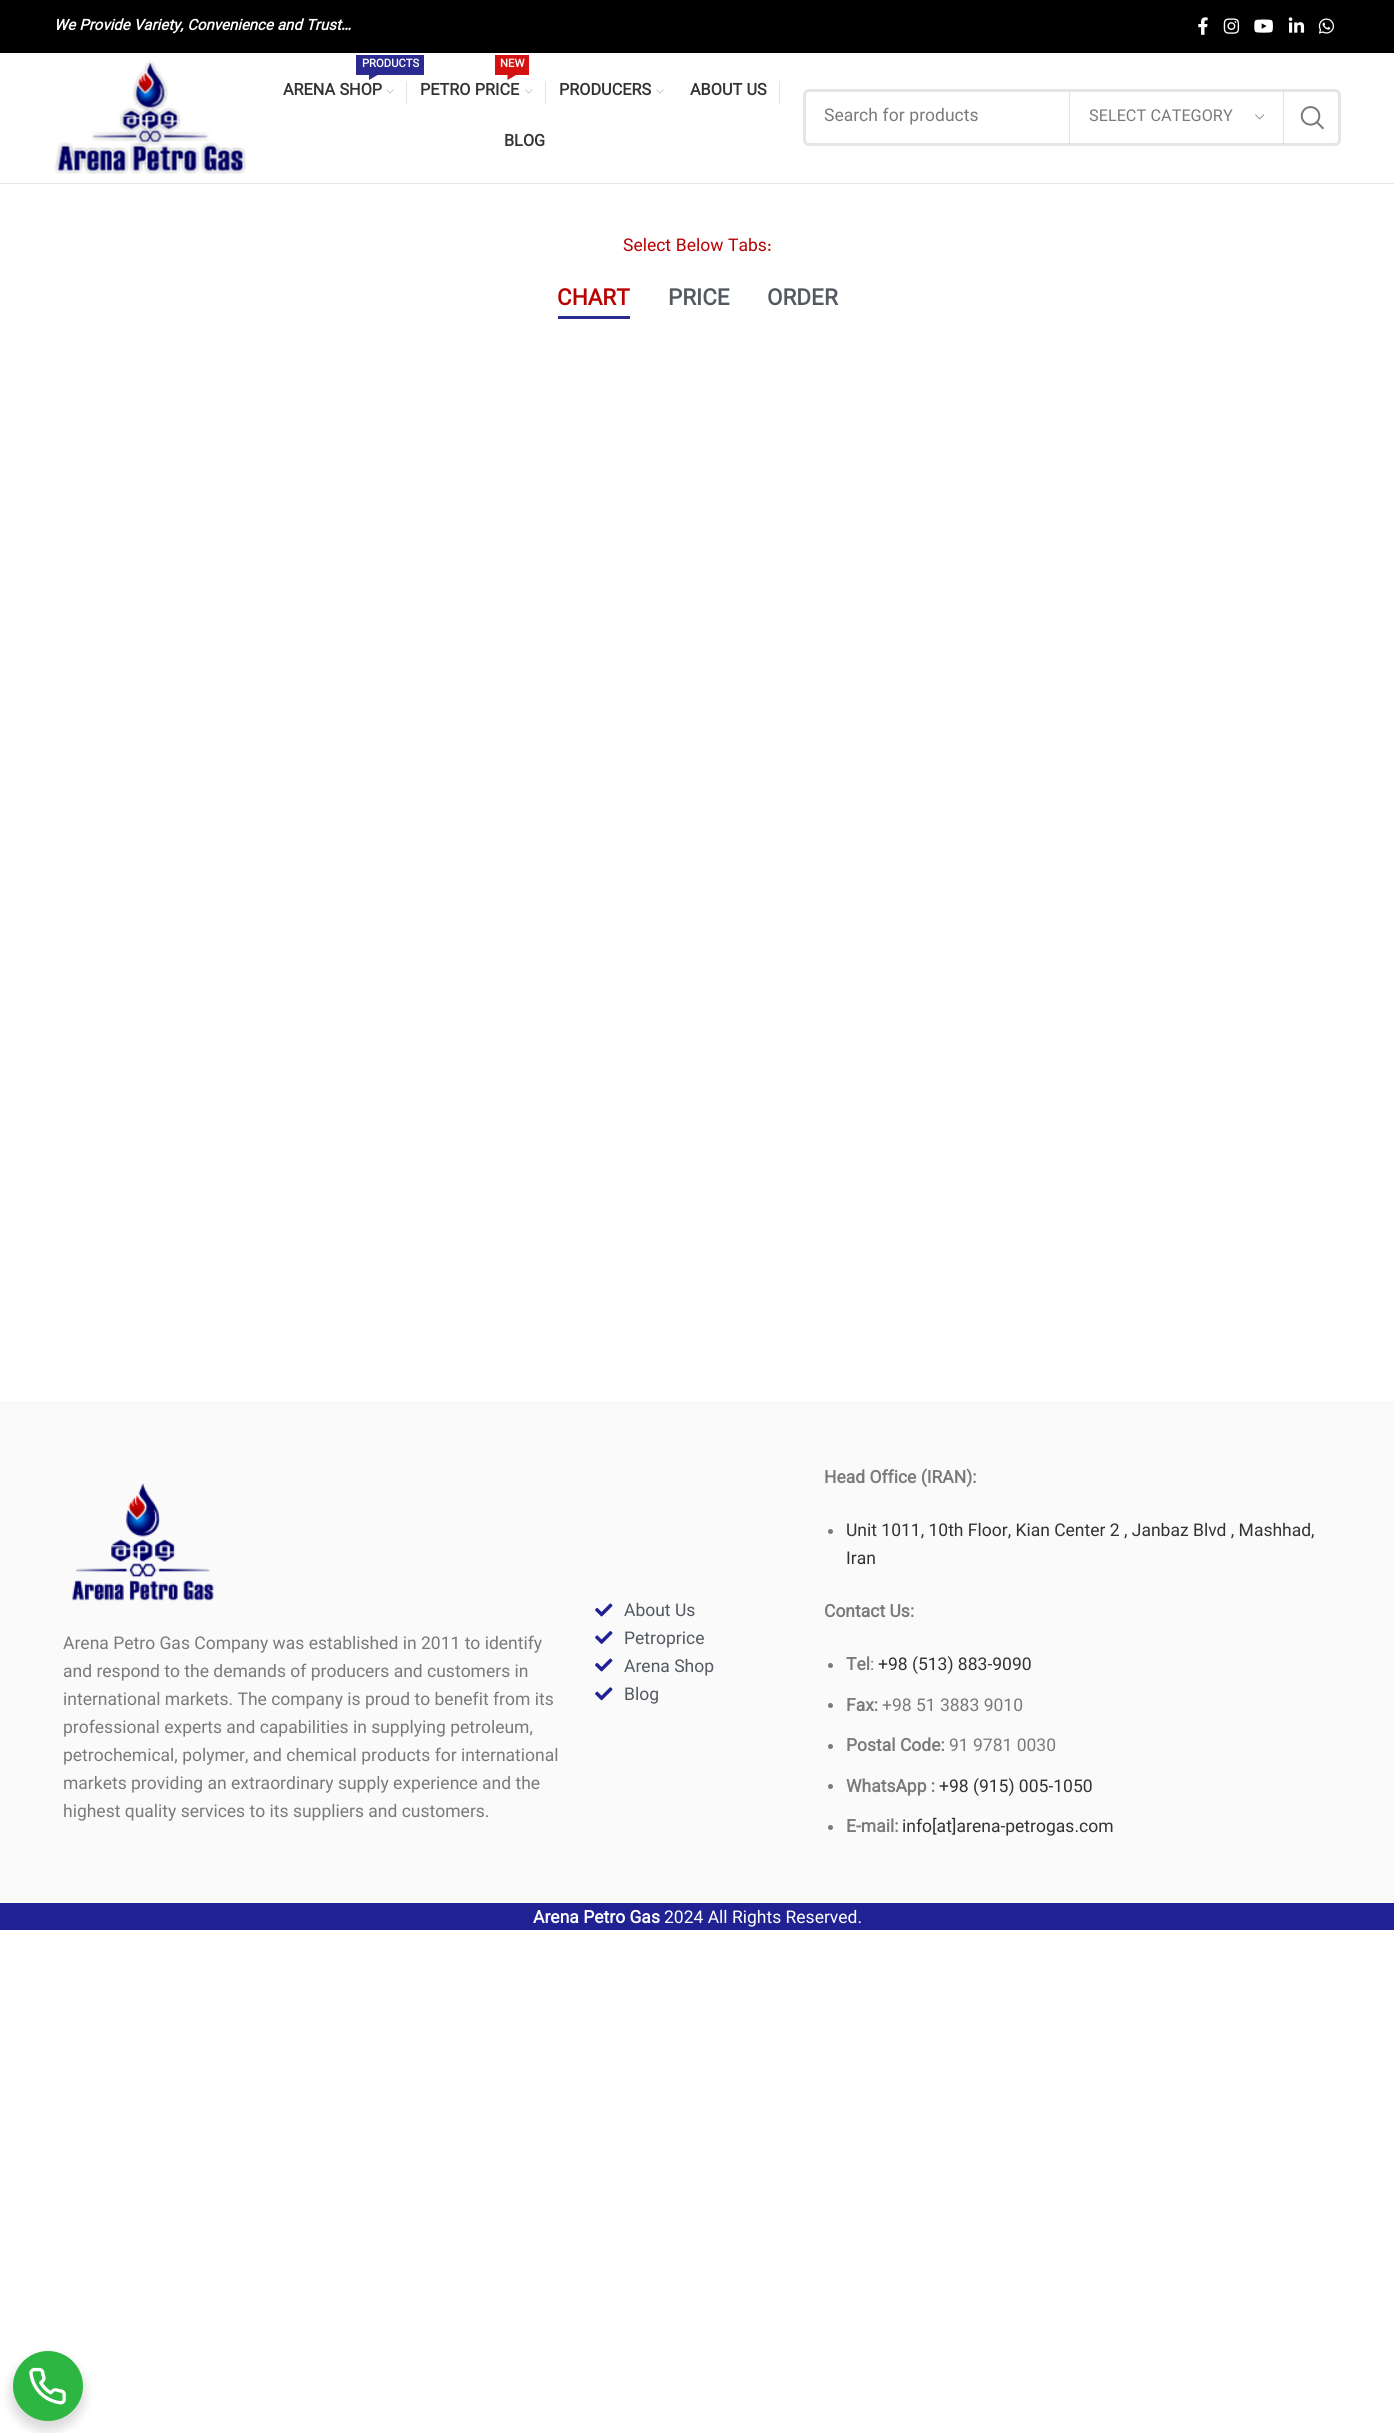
#include <cairo.h>
#include <math.h>
#include <stddef.h>


static void rgb(cairo_t *cr, int r, int g, int b)
{
	cairo_set_source_rgb(cr, r / 255.0, g / 255.0, b / 255.0);
}

static void face(cairo_t *cr, const char *family, double size, int italic, int bold)
{
	cairo_select_font_face(cr, family, italic ? CAIRO_FONT_SLANT_ITALIC : CAIRO_FONT_SLANT_NORMAL,
		bold ? CAIRO_FONT_WEIGHT_BOLD : CAIRO_FONT_WEIGHT_NORMAL);
	cairo_set_font_size(cr, size);
}

static void label(cairo_t *cr, double x, double y, const char *s)
{
	cairo_move_to(cr, x, y);
	cairo_show_text(cr, s);
}

static void rect(cairo_t *cr, double x, double y, double w, double h)
{
	cairo_rectangle(cr, x, y, w, h);
	cairo_fill(cr);
}

static void rrect(cairo_t *cr, double x, double y, double w, double h, double r)
{
	cairo_new_sub_path(cr);
	cairo_arc(cr, x + w - r, y + h - r, r, 0, M_PI / 2);
	cairo_arc(cr, x + r, y + h - r, r, M_PI / 2, M_PI);
	cairo_arc(cr, x + r, y + r, r, M_PI, 1.5 * M_PI);
	cairo_arc(cr, x + w - r, y + r, r, 1.5 * M_PI, 2 * M_PI);
	cairo_close_path(cr);
}

static void soft_shadow(cairo_t *cr, double x, double y, double w, double h, double r, double blur, double alpha)
{
	cairo_push_group_with_content(cr, CAIRO_CONTENT_ALPHA);
	cairo_set_operator(cr, CAIRO_OPERATOR_SOURCE);
	for (int i = 15; i >= -15 && fmin(w, h) + blur * i / 3 > 0; i -= 2) {
		double e = blur * i / 6;
		cairo_set_source_rgba(cr, 0, 0, 0, alpha * erfc((i - 1) / 8.5) / 2);
		rrect(cr, x - e, y - e, w + 2 * e, h + 2 * e, fmax(0, fmin(r + e + blur * .6, fmin(w, h) / 2 + e)));
		cairo_fill(cr);
	}
	cairo_pattern_t *soft = cairo_pop_group(cr);
	cairo_mask(cr, soft);
	cairo_pattern_destroy(soft);
}

static void image(cairo_t *cr, const char *path, double x, double y, double w, double h)
{
	cairo_surface_t *image = cairo_image_surface_create_from_png(path);
	cairo_save(cr);
	cairo_set_source_surface(cr, image, x, y);
	cairo_rectangle(cr, x, y, w, h);
	cairo_fill(cr);
	cairo_restore(cr);
	cairo_surface_destroy(image);
}

static void draw(cairo_t *cr) {
	rgb(cr, 255, 255, 255);
	cairo_paint(cr);
	rgb(cr, 0, 0, 0);
	rect(cr, 0, 0, 1394, 53);
	face(cr, "Vazirmatn", 15, 1, 1);
	rgb(cr, 255, 255, 255);
	label(cr, 54, 30, "We Provide Variety, Convenience and Trust…");
	image(cr, "image0.png", 1198, 17, 10, 18);
	image(cr, "image1.png", 1223, 18, 17, 16);
	image(cr, "image2.png", 1254, 19, 19, 14);
	image(cr, "image3.png", 1288, 17, 17, 16);
	image(cr, "image4.png", 1318, 18, 16, 16);
	rgb(cr, 230, 230, 230);
	rect(cr, 0, 183, 1394, 1);
	image(cr, "image5.png", 54, 60, 192, 114);
	rgb(cr, 42, 42, 145);
	rect(cr, 356, 55, 68, 20);
	face(cr, "Vazirmatn", 11.25, 0, 1);
	rgb(cr, 255, 255, 255);
	label(cr, 362, 67, "PRODUCTS");
	rgb(cr, 42, 42, 145);
	cairo_new_path(cr);
	cairo_move_to(cr, 369, 75);
	cairo_line_to(cr, 377.5, 75);
	cairo_line_to(cr, 369, 80);
	cairo_close_path(cr);
	cairo_fill(cr);
	face(cr, "Vazirmatn", 16.25, 0, 1);
	rgb(cr, 51, 51, 51);
	label(cr, 283, 95, "ARENA SHOP");
	image(cr, "image6.png", 386, 89, 8, 5);
	rgb(cr, 228, 228, 228);
	rect(cr, 406, 81, 1, 23);
	rgb(cr, 212, 18, 18);
	rect(cr, 495, 55, 34, 20);
	face(cr, "Vazirmatn", 11.25, 0, 1);
	rgb(cr, 255, 255, 255);
	label(cr, 500, 67, "NEW");
	rgb(cr, 212, 18, 18);
	cairo_new_path(cr);
	cairo_move_to(cr, 507.5, 75);
	cairo_line_to(cr, 516, 75);
	cairo_line_to(cr, 507.5, 80);
	cairo_close_path(cr);
	cairo_fill(cr);
	face(cr, "Vazirmatn", 16.25, 0, 1);
	rgb(cr, 51, 51, 51);
	label(cr, 420, 95, "PETRO PRICE");
	image(cr, "image7.png", 525, 89, 8, 5);
	rgb(cr, 228, 228, 228);
	rect(cr, 545, 81, 1, 23);
	rgb(cr, 51, 51, 51);
	label(cr, 559, 95, "PRODUCERS");
	image(cr, "image6.png", 656, 89, 8, 5);
	label(cr, 690, 95, "ABOUT US");
	rgb(cr, 228, 228, 228);
	rect(cr, 779, 81, 1, 23);
	rgb(cr, 51, 51, 51);
	label(cr, 504, 146, "BLOG");
	rrect(cr, 804.5, 90.5, 535, 54, 4.5);
	rgb(cr, 230, 230, 230);
	cairo_set_line_width(cr, 3);
	cairo_stroke(cr);
	face(cr, "Vazirmatn", 17.5, 0, 0);
	rgb(cr, 122, 122, 122);
	label(cr, 824, 121, "Search for products");
	cairo_set_source_rgba(cr, 0, 0, 0, 0.1);
	rect(cr, 1283, 91, 1, 53);
	rect(cr, 1069, 91, 1, 53);
	face(cr, "Vazirmatn", 16.25, 0, 0);
	rgb(cr, 122, 122, 122);
	label(cr, 1089, 121, "SELECT CATEGORY");
	image(cr, "image8.png", 1255, 114, 10, 6);
	image(cr, "image9.png", 1300, 106, 24, 24);
	face(cr, "Vazirmatn", 17.5, 0, 0);
	rgb(cr, 184, 1, 1);
	label(cr, 623, 251, "Select Below Tabs:");
	face(cr, "Vazirmatn", 22.5, 0, 1);
	label(cr, 557, 305, "CHART");
	rgb(cr, 42, 42, 145);
	rect(cr, 558, 316, 72, 3);
	rgb(cr, 84, 89, 95);
	label(cr, 668, 305, "PRICE");
	label(cr, 767, 305, "ORDER");
	rgb(cr, 250, 250, 250);
	rect(cr, 0, 1401, 1394, 502);
	image(cr, "image10.png", 72, 1483, 142, 118);
	face(cr, "Roboto", 17.5, 0, 0);
	rgb(cr, 122, 122, 122);
	label(cr, 63, 1649, "Arena Petro Gas Company was established in 2011 to identify");
	label(cr, 63, 1677, "and respond to the demands of producers and customers in");
	label(cr, 63, 1705, "international markets. The company is proud to benefit from its");
	label(cr, 63, 1733, "professional experts and capabilities in supplying petroleum,");
	label(cr, 63, 1761, "petrochemical, polymer, and chemical products for international");
	label(cr, 63, 1789, "markets providing an extraordinary supply experience and the");
	label(cr, 63, 1817, "highest quality services to its suppliers and customers.");
	image(cr, "image11.png", 595, 1603, 18, 14);
	rgb(cr, 84, 89, 95);
	label(cr, 624, 1616, "About Us");
	image(cr, "image12.png", 595, 1631, 18, 13);
	label(cr, 624, 1644, "Petroprice");
	image(cr, "image11.png", 595, 1658, 18, 14);
	label(cr, 624, 1672, "Arena Shop");
	image(cr, "image13.png", 595, 1687, 18, 14);
	label(cr, 624, 1700, "Blog");
	face(cr, "Roboto", 17.5, 0, 1);
	rgb(cr, 122, 122, 122);
	label(cr, 824, 1483, "Head Office (IRAN):");
	cairo_new_path(cr);
	cairo_arc(cr, 830.5, 1531.5, 2.5, 0, 2 * M_PI);
	cairo_fill(cr);
	face(cr, "Roboto", 17.5, 0, 0);
	rgb(cr, 51, 51, 51);
	label(cr, 846, 1536, "Unit 1011, 10th Floor, Kian Center 2 , Janbaz Blvd , Mashhad,");
	label(cr, 846, 1564, "Iran");
	face(cr, "Roboto", 17.5, 0, 1);
	rgb(cr, 122, 122, 122);
	label(cr, 824, 1617, "Contact Us:");
	cairo_new_path(cr);
	cairo_arc(cr, 830.5, 1665.5, 2.5, 0, 2 * M_PI);
	cairo_fill(cr);
	label(cr, 846, 1670, "Tel");
	face(cr, "Roboto", 17.5, 0, 0);
	label(cr, 870, 1670, ":");
	rgb(cr, 51, 51, 51);
	label(cr, 878, 1670, "+98 (513) 883-9090");
	rgb(cr, 122, 122, 122);
	cairo_new_path(cr);
	cairo_arc(cr, 830.5, 1705.5, 2.5, 0, 2 * M_PI);
	cairo_fill(cr);
	face(cr, "Roboto", 17.5, 0, 1);
	label(cr, 846, 1711, "Fax:");
	face(cr, "Roboto", 17.5, 0, 0);
	label(cr, 882, 1711, "+98 51 3883 9010");
	cairo_new_path(cr);
	cairo_arc(cr, 830.5, 1746.5, 2.5, 0, 2 * M_PI);
	cairo_fill(cr);
	face(cr, "Roboto", 17.5, 0, 1);
	label(cr, 846, 1751, "Postal Code:");
	face(cr, "Roboto", 17.5, 0, 0);
	label(cr, 949, 1751, "91 9781 0030");
	cairo_new_path(cr);
	cairo_arc(cr, 830.5, 1786.5, 2.5, 0, 2 * M_PI);
	cairo_fill(cr);
	face(cr, "Roboto", 17.5, 0, 1);
	label(cr, 846, 1792, "WhatsApp :");
	face(cr, "Roboto", 17.5, 0, 0);
	rgb(cr, 51, 51, 51);
	label(cr, 939, 1792, "+98 (915) 005-1050");
	rgb(cr, 122, 122, 122);
	cairo_new_path(cr);
	cairo_arc(cr, 830.5, 1827.5, 2.5, 0, 2 * M_PI);
	cairo_fill(cr);
	face(cr, "Roboto", 17.5, 0, 1);
	label(cr, 846, 1832, "E-mail:");
	face(cr, "Roboto", 17.5, 0, 0);
	rgb(cr, 51, 51, 51);
	label(cr, 902, 1832, "info[at]arena-petrogas.com");
	rgb(cr, 32, 34, 148);
	rect(cr, 0, 1903, 1394, 27);
	face(cr, "Roboto", 17.5, 0, 1);
	rgb(cr, 255, 255, 255);
	label(cr, 533, 1923, "Arena Petro Gas");
	face(cr, "Roboto", 17.5, 0, 0);
	label(cr, 664, 1923, "2024 All Rights Reserved.");
	rgb(cr, 0, 0, 0);
	soft_shadow(cr, 10, 2356, 75, 75, 37.5, 5, 0.14);
	rgb(cr, 45, 183, 66);
	cairo_arc(cr, 48, 2386, 35, 0, 2 * M_PI);
	cairo_fill(cr);
	image(cr, "image14.png", 29, 2367, 37, 38);
}

int main(void) {
	cairo_surface_t *surface = cairo_image_surface_create(CAIRO_FORMAT_RGB24, 1394, 2433);
	cairo_t *cr = cairo_create(surface);
	cairo_font_options_t *options = cairo_font_options_create();
	cairo_font_options_set_hint_metrics(options, CAIRO_HINT_METRICS_OFF);
	cairo_font_options_set_hint_style(options, CAIRO_HINT_STYLE_NONE);
	cairo_set_font_options(cr, options);
	cairo_set_miter_limit(cr, 4);
	draw(cr);
	cairo_surface_write_to_png(surface, "render.png");
	cairo_font_options_destroy(options);
	cairo_destroy(cr);
	cairo_surface_destroy(surface);
	return 0;
}
